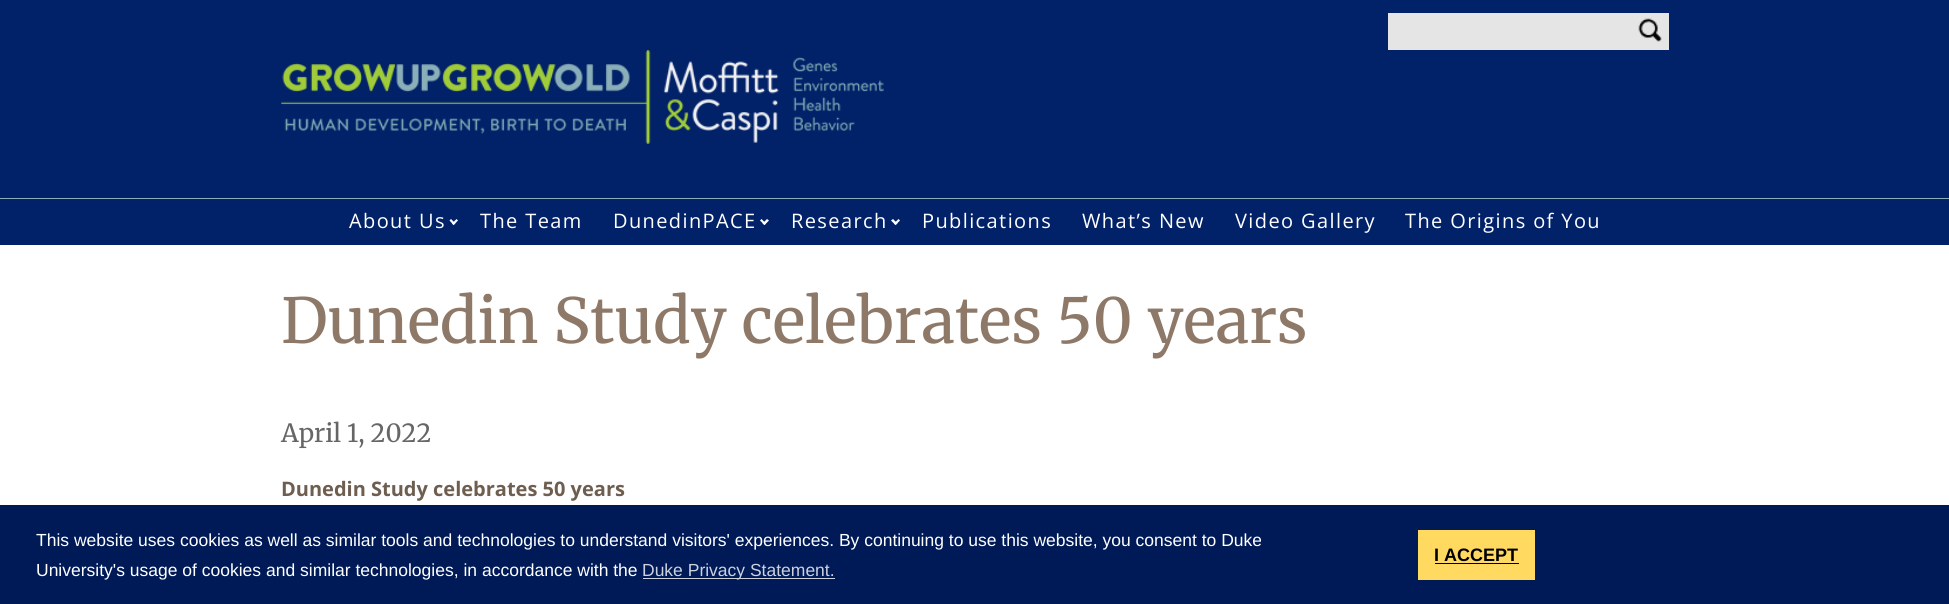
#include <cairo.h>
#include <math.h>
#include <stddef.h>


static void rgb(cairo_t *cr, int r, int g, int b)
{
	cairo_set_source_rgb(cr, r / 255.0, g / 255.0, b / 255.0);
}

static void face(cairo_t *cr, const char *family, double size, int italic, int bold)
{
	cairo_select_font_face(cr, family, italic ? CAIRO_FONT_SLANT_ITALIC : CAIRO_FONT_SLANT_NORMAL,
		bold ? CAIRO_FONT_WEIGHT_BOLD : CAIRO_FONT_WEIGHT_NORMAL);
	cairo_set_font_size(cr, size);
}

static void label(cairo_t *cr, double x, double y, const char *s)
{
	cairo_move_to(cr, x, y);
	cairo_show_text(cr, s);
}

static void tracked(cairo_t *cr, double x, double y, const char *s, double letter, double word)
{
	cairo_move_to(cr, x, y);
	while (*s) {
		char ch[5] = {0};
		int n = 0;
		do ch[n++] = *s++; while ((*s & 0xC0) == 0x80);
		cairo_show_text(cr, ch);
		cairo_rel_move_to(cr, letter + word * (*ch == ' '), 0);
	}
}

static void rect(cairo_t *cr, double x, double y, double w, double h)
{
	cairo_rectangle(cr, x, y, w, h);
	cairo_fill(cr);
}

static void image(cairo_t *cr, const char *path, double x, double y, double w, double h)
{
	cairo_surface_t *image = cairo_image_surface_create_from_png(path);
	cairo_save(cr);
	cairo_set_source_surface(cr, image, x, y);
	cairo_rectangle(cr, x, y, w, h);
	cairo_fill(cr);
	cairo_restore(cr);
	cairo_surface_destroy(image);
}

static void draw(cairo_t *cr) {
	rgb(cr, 255, 255, 255);
	cairo_paint(cr);
	rgb(cr, 1, 33, 105);
	rect(cr, 0, 0, 1949, 245);
	rgb(cr, 229, 229, 229);
	rect(cr, 1389, 14, 242, 35);
	cairo_rectangle(cr, 1388.5, 13.5, 249, 36);
	cairo_set_line_width(cr, 1);
	cairo_stroke(cr);
	rect(cr, 1631, 13, 38, 37);
	image(cr, "image0.png", 1638, 18, 24, 24);
	image(cr, "image1.png", 281, 50, 603, 94);
	rgb(cr, 138, 175, 184);
	rect(cr, 0, 198, 1949, 1);
	face(cr, "Open Sans", 20, 0, 0);
	rgb(cr, 255, 255, 255);
	tracked(cr, 349, 228, "About Us", 1.4, 0);
	cairo_new_path(cr);
	cairo_move_to(cr, 456.5, 219);
	cairo_line_to(cr, 458, 220.5);
	cairo_line_to(cr, 453.5, 225);
	cairo_line_to(cr, 452, 223.5);
	cairo_close_path(cr);
	cairo_fill(cr);
	cairo_new_path(cr);
	cairo_move_to(cr, 451, 219);
	cairo_line_to(cr, 455.5, 223.5);
	cairo_line_to(cr, 453.5, 225);
	cairo_line_to(cr, 449.5, 220.5);
	cairo_close_path(cr);
	cairo_fill(cr);
	tracked(cr, 480, 228, "The Team", 1.4, 0);
	tracked(cr, 613, 228, "DunedinPACE", 1.4, 0);
	cairo_new_path(cr);
	cairo_move_to(cr, 767, 219);
	cairo_line_to(cr, 769, 220.5);
	cairo_line_to(cr, 764.5, 225);
	cairo_line_to(cr, 762.5, 223.5);
	cairo_close_path(cr);
	cairo_fill(cr);
	cairo_new_path(cr);
	cairo_move_to(cr, 761.5, 219);
	cairo_line_to(cr, 766, 223.5);
	cairo_line_to(cr, 764.5, 225);
	cairo_line_to(cr, 760, 220.5);
	cairo_close_path(cr);
	cairo_fill(cr);
	tracked(cr, 791, 228, "Research", 1.4, 0);
	cairo_new_path(cr);
	cairo_move_to(cr, 898.5, 219);
	cairo_line_to(cr, 900, 220.5);
	cairo_line_to(cr, 895.5, 225);
	cairo_line_to(cr, 894, 223.5);
	cairo_close_path(cr);
	cairo_fill(cr);
	cairo_new_path(cr);
	cairo_move_to(cr, 893, 219);
	cairo_line_to(cr, 897.5, 223.5);
	cairo_line_to(cr, 895.5, 225);
	cairo_line_to(cr, 891, 220.5);
	cairo_close_path(cr);
	cairo_fill(cr);
	tracked(cr, 922, 228, "Publications", 1.4, 0);
	tracked(cr, 1082, 228, "What’s New", 1.4, 0);
	tracked(cr, 1235, 228, "Video Gallery", 1.4, 0);
	tracked(cr, 1405, 228, "The Origins of You", 1.4, 0);
	face(cr, "Merriweather", 62, 0, 0);
	rgb(cr, 142, 121, 105);
	label(cr, 281, 343, "Dunedin Study celebrates 50 years");
	face(cr, "Merriweather", 25, 0, 0);
	rgb(cr, 102, 102, 102);
	label(cr, 281, 442, "April 1, 2022");
	face(cr, "Open Sans", 20, 0, 1);
	rgb(cr, 110, 94, 80);
	label(cr, 281, 496, "Dunedin Study celebrates 50 years");
	rgb(cr, 0, 26, 87);
	rect(cr, 0, 505, 1949, 99);
	face(cr, "Liberation Sans", 17.5, 0, 0);
	rgb(cr, 255, 255, 255);
	label(cr, 36, 546, "This website uses cookies as well as similar tools and technologies to understand visitors' experiences. By continuing to use this website, you consent to Duke");
	label(cr, 36, 576, "University's usage of cookies and similar technologies, in accordance with the");
	rgb(cr, 204, 209, 221);
	rect(cr, 643, 578, 192, 1);
	label(cr, 642, 576, "Duke Privacy Statement.");
	rgb(cr, 255, 217, 96);
	rect(cr, 1418, 530, 117, 50);
	face(cr, "Liberation Sans", 18, 0, 1);
	rgb(cr, 0, 0, 0);
	label(cr, 1434, 561, "I ACCEPT");
	rect(cr, 1435, 563, 84, 1);
}

int main(void) {
	cairo_surface_t *surface = cairo_image_surface_create(CAIRO_FORMAT_RGB24, 1949, 604);
	cairo_t *cr = cairo_create(surface);
	cairo_font_options_t *options = cairo_font_options_create();
	cairo_font_options_set_hint_metrics(options, CAIRO_HINT_METRICS_OFF);
	cairo_font_options_set_hint_style(options, CAIRO_HINT_STYLE_NONE);
	cairo_set_font_options(cr, options);
	cairo_set_miter_limit(cr, 4);
	draw(cr);
	cairo_surface_write_to_png(surface, "render.png");
	cairo_font_options_destroy(options);
	cairo_destroy(cr);
	cairo_surface_destroy(surface);
	return 0;
}
